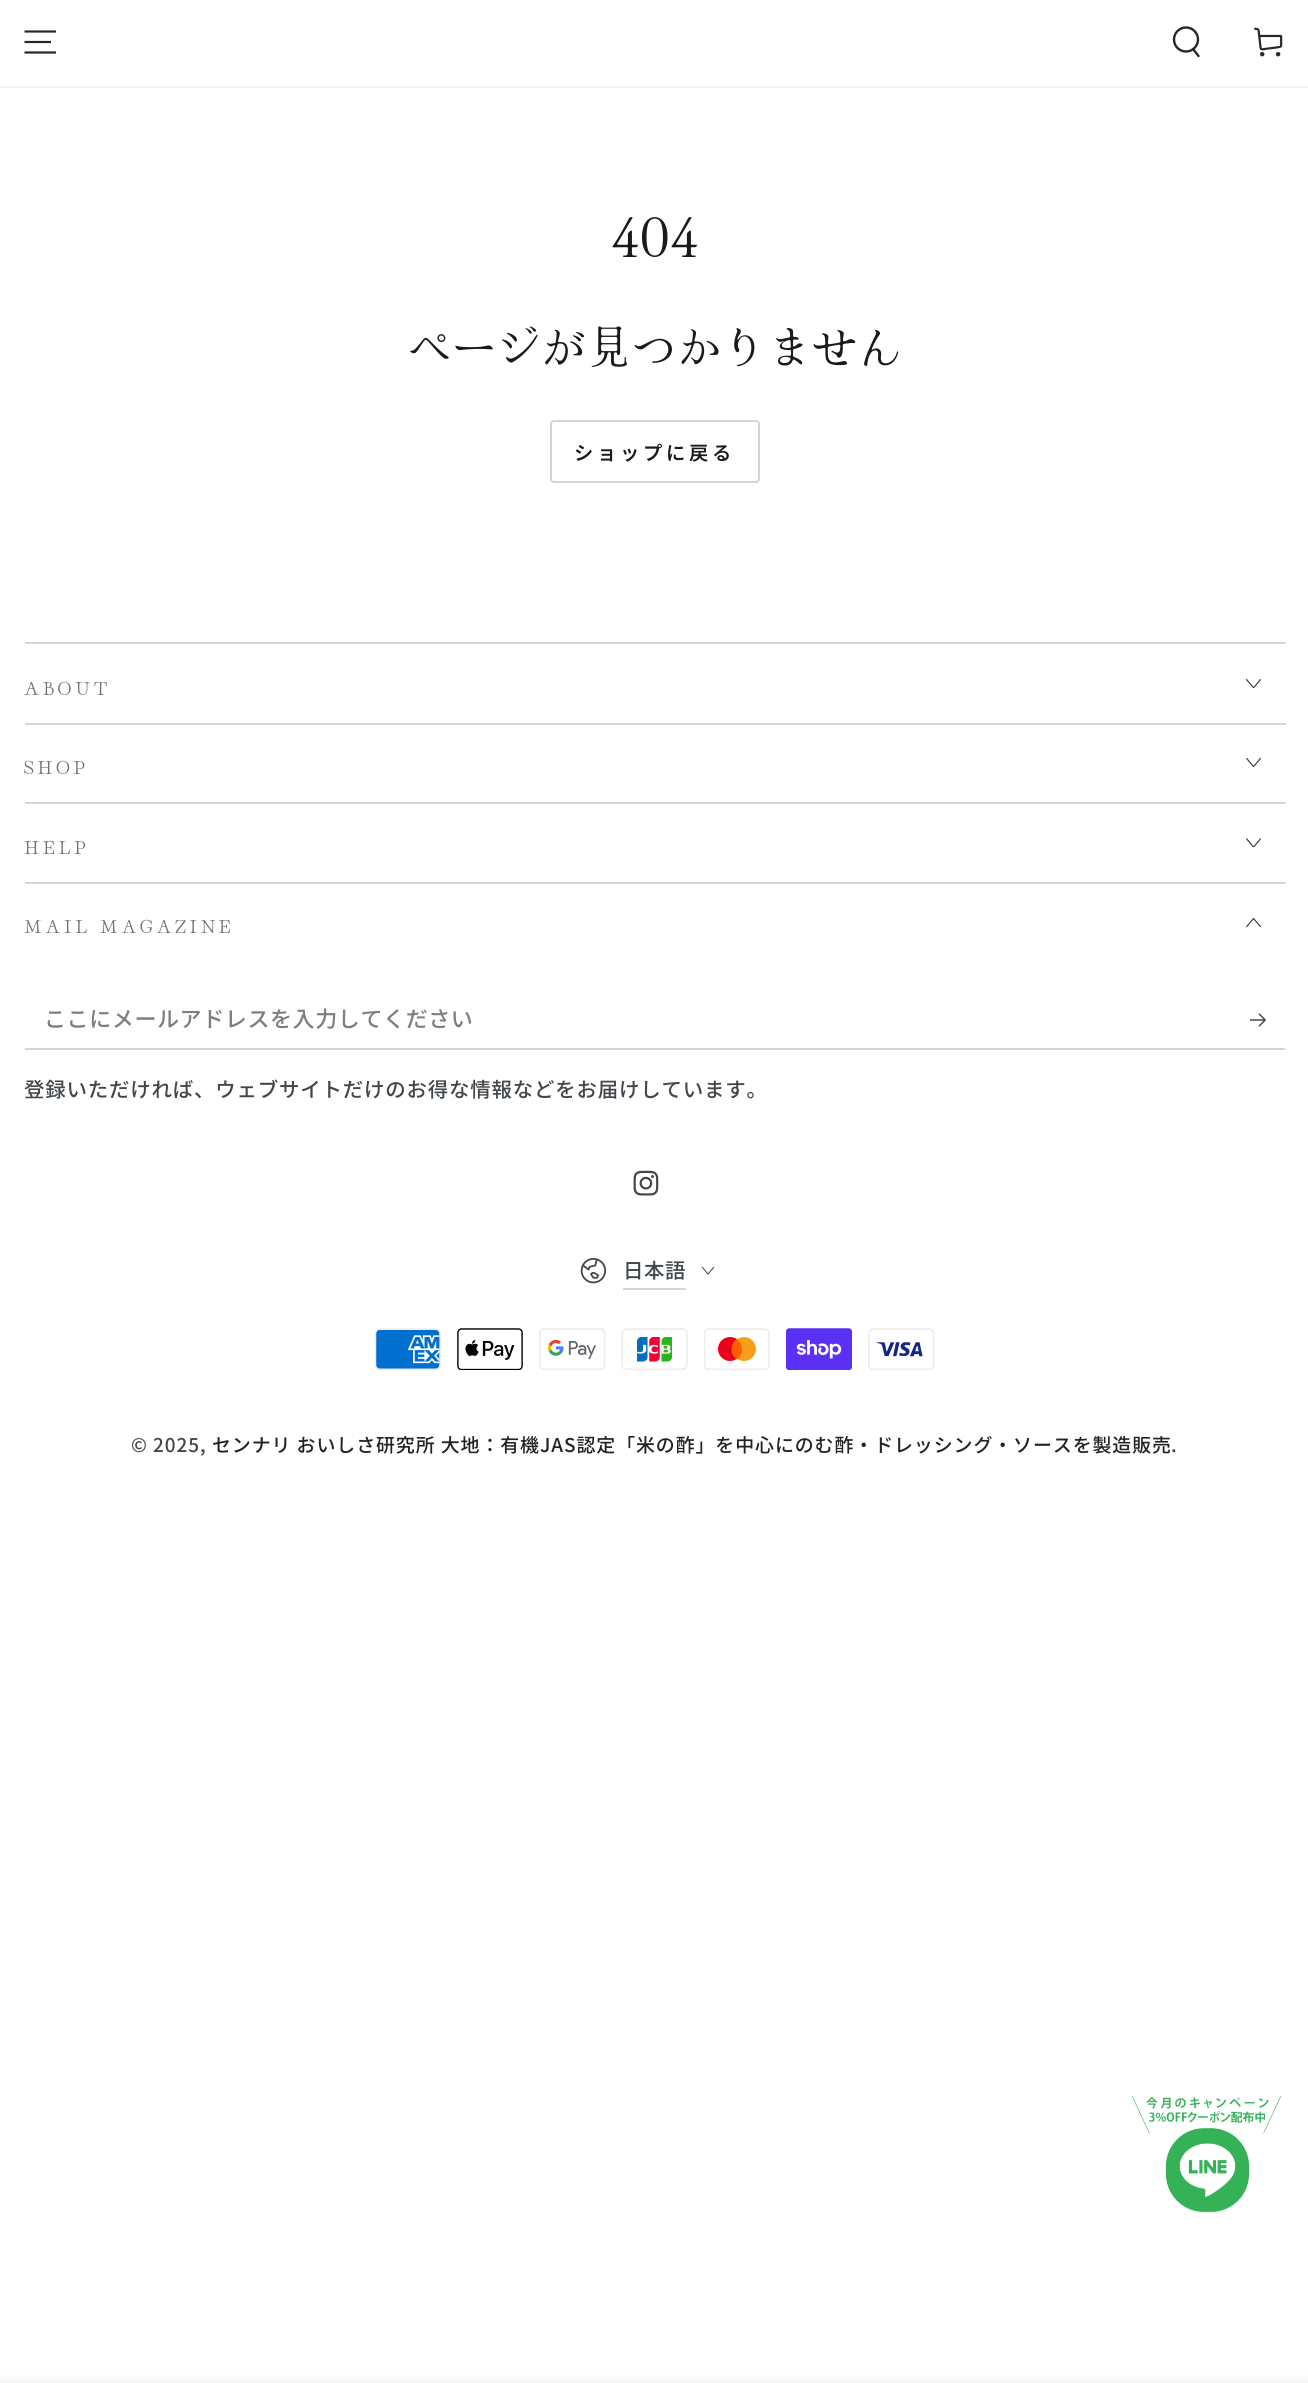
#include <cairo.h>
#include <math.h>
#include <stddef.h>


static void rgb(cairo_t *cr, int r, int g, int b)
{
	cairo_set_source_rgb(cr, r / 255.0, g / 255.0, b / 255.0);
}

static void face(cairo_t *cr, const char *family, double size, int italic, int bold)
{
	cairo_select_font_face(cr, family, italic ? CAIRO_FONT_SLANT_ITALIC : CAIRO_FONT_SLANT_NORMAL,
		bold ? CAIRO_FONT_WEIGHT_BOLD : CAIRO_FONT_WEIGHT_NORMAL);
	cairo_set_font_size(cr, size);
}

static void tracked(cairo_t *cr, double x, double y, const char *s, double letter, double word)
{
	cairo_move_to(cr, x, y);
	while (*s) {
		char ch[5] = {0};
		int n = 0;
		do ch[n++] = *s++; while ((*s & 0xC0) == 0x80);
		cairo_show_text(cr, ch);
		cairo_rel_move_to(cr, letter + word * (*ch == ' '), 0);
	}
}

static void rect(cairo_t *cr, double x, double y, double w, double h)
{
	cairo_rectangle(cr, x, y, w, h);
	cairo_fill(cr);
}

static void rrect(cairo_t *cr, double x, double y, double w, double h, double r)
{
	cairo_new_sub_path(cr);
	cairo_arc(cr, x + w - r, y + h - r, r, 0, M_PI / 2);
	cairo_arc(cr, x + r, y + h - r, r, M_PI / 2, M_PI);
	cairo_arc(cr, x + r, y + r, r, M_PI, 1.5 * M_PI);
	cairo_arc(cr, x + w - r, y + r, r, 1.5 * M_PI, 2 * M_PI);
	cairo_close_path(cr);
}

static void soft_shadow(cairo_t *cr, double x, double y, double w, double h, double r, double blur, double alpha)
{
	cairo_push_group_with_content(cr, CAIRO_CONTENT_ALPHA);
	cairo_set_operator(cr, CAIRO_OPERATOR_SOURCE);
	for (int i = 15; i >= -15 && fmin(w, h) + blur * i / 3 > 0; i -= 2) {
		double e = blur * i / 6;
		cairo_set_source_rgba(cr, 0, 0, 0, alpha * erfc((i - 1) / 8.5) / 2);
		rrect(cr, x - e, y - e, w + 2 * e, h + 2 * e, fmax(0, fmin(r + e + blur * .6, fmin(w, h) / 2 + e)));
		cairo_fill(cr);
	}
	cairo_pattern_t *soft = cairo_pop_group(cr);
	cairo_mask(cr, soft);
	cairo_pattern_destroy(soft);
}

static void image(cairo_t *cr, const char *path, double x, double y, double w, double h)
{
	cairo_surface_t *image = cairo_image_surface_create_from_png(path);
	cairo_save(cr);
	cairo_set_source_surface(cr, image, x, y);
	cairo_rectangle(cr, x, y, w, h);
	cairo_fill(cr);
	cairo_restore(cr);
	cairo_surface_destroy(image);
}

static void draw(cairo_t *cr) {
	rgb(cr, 255, 255, 255);
	cairo_paint(cr);
	rgb(cr, 242, 242, 244);
	rect(cr, 0, 86, 1308, 2);
	cairo_new_path(cr);
	cairo_move_to(cr, 24.5, 52.5);
	cairo_line_to(cr, 56, 52.5);
	cairo_move_to(cr, 24.5, 42);
	cairo_line_to(cr, 51, 42);
	cairo_move_to(cr, 24.5, 31.5);
	cairo_line_to(cr, 56, 31.5);
	rgb(cr, 40, 40, 40);
	cairo_set_line_width(cr, 2.2);
	cairo_stroke(cr);
	cairo_arc(cr, 1186, 39.5, 12, 0, 2 * M_PI);
	cairo_set_line_width(cr, 2.4);
	cairo_stroke(cr);
	cairo_new_path(cr);
	cairo_move_to(cr, 1193, 49);
	cairo_line_to(cr, 1198.5, 56);
	cairo_set_line_cap(cr, CAIRO_LINE_CAP_ROUND);
	cairo_stroke(cr);
	image(cr, "image0.png", 1254, 27, 29, 30);
	face(cr, "Hina Mincho", 57, 0, 0);
	rgb(cr, 26, 27, 24);
	tracked(cr, 611, 257, "404", 0.95, 0);
	face(cr, "Hina Mincho", 44.1, 0, 0);
	tracked(cr, 407, 364, "ページが見つかりません", 0.95, 0);
	rrect(cr, 551, 421, 208, 61, 3);
	rgb(cr, 210, 213, 217);
	cairo_set_line_width(cr, 2);
	cairo_set_line_cap(cr, CAIRO_LINE_CAP_BUTT);
	cairo_stroke(cr);
	face(cr, "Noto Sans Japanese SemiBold", 19.25, 0, 0);
	rgb(cr, 26, 27, 24);
	tracked(cr, 574, 460, "ショップに戻る", 3.75, 0);
	rgb(cr, 210, 213, 217);
	rect(cr, 25, 642, 1261, 2);
	rect(cr, 25, 723, 1261, 2);
	face(cr, "Hina Mincho", 18.9, 0, 0);
	rgb(cr, 107, 113, 119);
	tracked(cr, 24, 695, "ABOUT", 3.75, 0);
	image(cr, "image1.png", 1246, 679, 15, 9);
	rgb(cr, 210, 213, 217);
	rect(cr, 25, 802, 1261, 2);
	rgb(cr, 107, 113, 119);
	tracked(cr, 24, 774, "SHOP", 3.75, 0);
	image(cr, "image2.png", 1246, 758, 15, 10);
	rgb(cr, 210, 213, 217);
	rect(cr, 25, 882, 1261, 2);
	rgb(cr, 107, 113, 119);
	tracked(cr, 24, 854, "HELP", 3.75, 0);
	image(cr, "image3.png", 1246, 838, 15, 9);
	tracked(cr, 24, 933, "MAIL MAGAZINE", 3.75, 0);
	image(cr, "image4.png", 1246, 917, 15, 11);
	rgb(cr, 210, 213, 217);
	cairo_new_path(cr);
	cairo_move_to(cr, 1286, 1050);
	cairo_line_to(cr, 24, 1050);
	cairo_line_to(cr, 26, 1048);
	cairo_line_to(cr, 1284, 1048);
	cairo_close_path(cr);
	cairo_fill(cr);
	face(cr, "Noto Sans Japanese Medium", 22, 0, 0);
	rgb(cr, 123, 126, 130);
	tracked(cr, 44, 1027, "ここにメールアドレスを入力してください", 0.6, 0);
	image(cr, "image5.png", 1250, 1013, 16, 14);
	face(cr, "Noto Sans Japanese Medium", 20.45, 0, 0);
	rgb(cr, 66, 71, 76);
	tracked(cr, 24, 1097, "登録いただければ、ウェブサイトだけのお得な情報などをお届けしています。", 0.8, 0);
	image(cr, "image6.png", 633, 1170, 26, 26);
	image(cr, "image7.png", 580, 1258, 27, 26);
	rgb(cr, 210, 213, 217);
	rect(cr, 623, 1288, 63, 2);
	rgb(cr, 66, 71, 76);
	tracked(cr, 623, 1278, "日本語", 0.6, 0);
	image(cr, "image8.png", 702, 1266, 12, 9);
	image(cr, "image9.png", 375, 1328, 66, 42);
	image(cr, "image10.png", 457, 1328, 66, 42);
	image(cr, "image11.png", 539, 1328, 67, 42);
	image(cr, "image12.png", 621, 1328, 67, 42);
	image(cr, "image13.png", 704, 1328, 66, 42);
	image(cr, "image14.png", 786, 1328, 66, 42);
	image(cr, "image15.png", 868, 1328, 67, 42);
	face(cr, "Noto Sans Japanese Medium", 18.9, 0, 0);
	tracked(cr, 131, 1452, "© 2025,", 0.95, 0);
	rgb(cr, 33, 35, 38);
	tracked(cr, 212, 1452, "センナリ おいしさ研究所 大地：有機JAS認定「米の酢」を中心にのむ酢・ドレッシング・ソースを製造販売", 0.95, 0);
	rgb(cr, 66, 71, 76);
	tracked(cr, 1171, 1452, ".", 0.95, 0);
	image(cr, "image16.png", 1131, 2095, 151, 118);
	rgb(cr, 33, 35, 38);
	soft_shadow(cr, 0, 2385, 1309, 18, 0, 6.5, 0.15);
}

int main(void) {
	cairo_surface_t *surface = cairo_image_surface_create(CAIRO_FORMAT_RGB24, 1308, 2383);
	cairo_t *cr = cairo_create(surface);
	cairo_font_options_t *options = cairo_font_options_create();
	cairo_font_options_set_hint_metrics(options, CAIRO_HINT_METRICS_OFF);
	cairo_font_options_set_hint_style(options, CAIRO_HINT_STYLE_NONE);
	cairo_set_font_options(cr, options);
	cairo_set_miter_limit(cr, 4);
	draw(cr);
	cairo_surface_write_to_png(surface, "render.png");
	cairo_font_options_destroy(options);
	cairo_destroy(cr);
	cairo_surface_destroy(surface);
	return 0;
}
